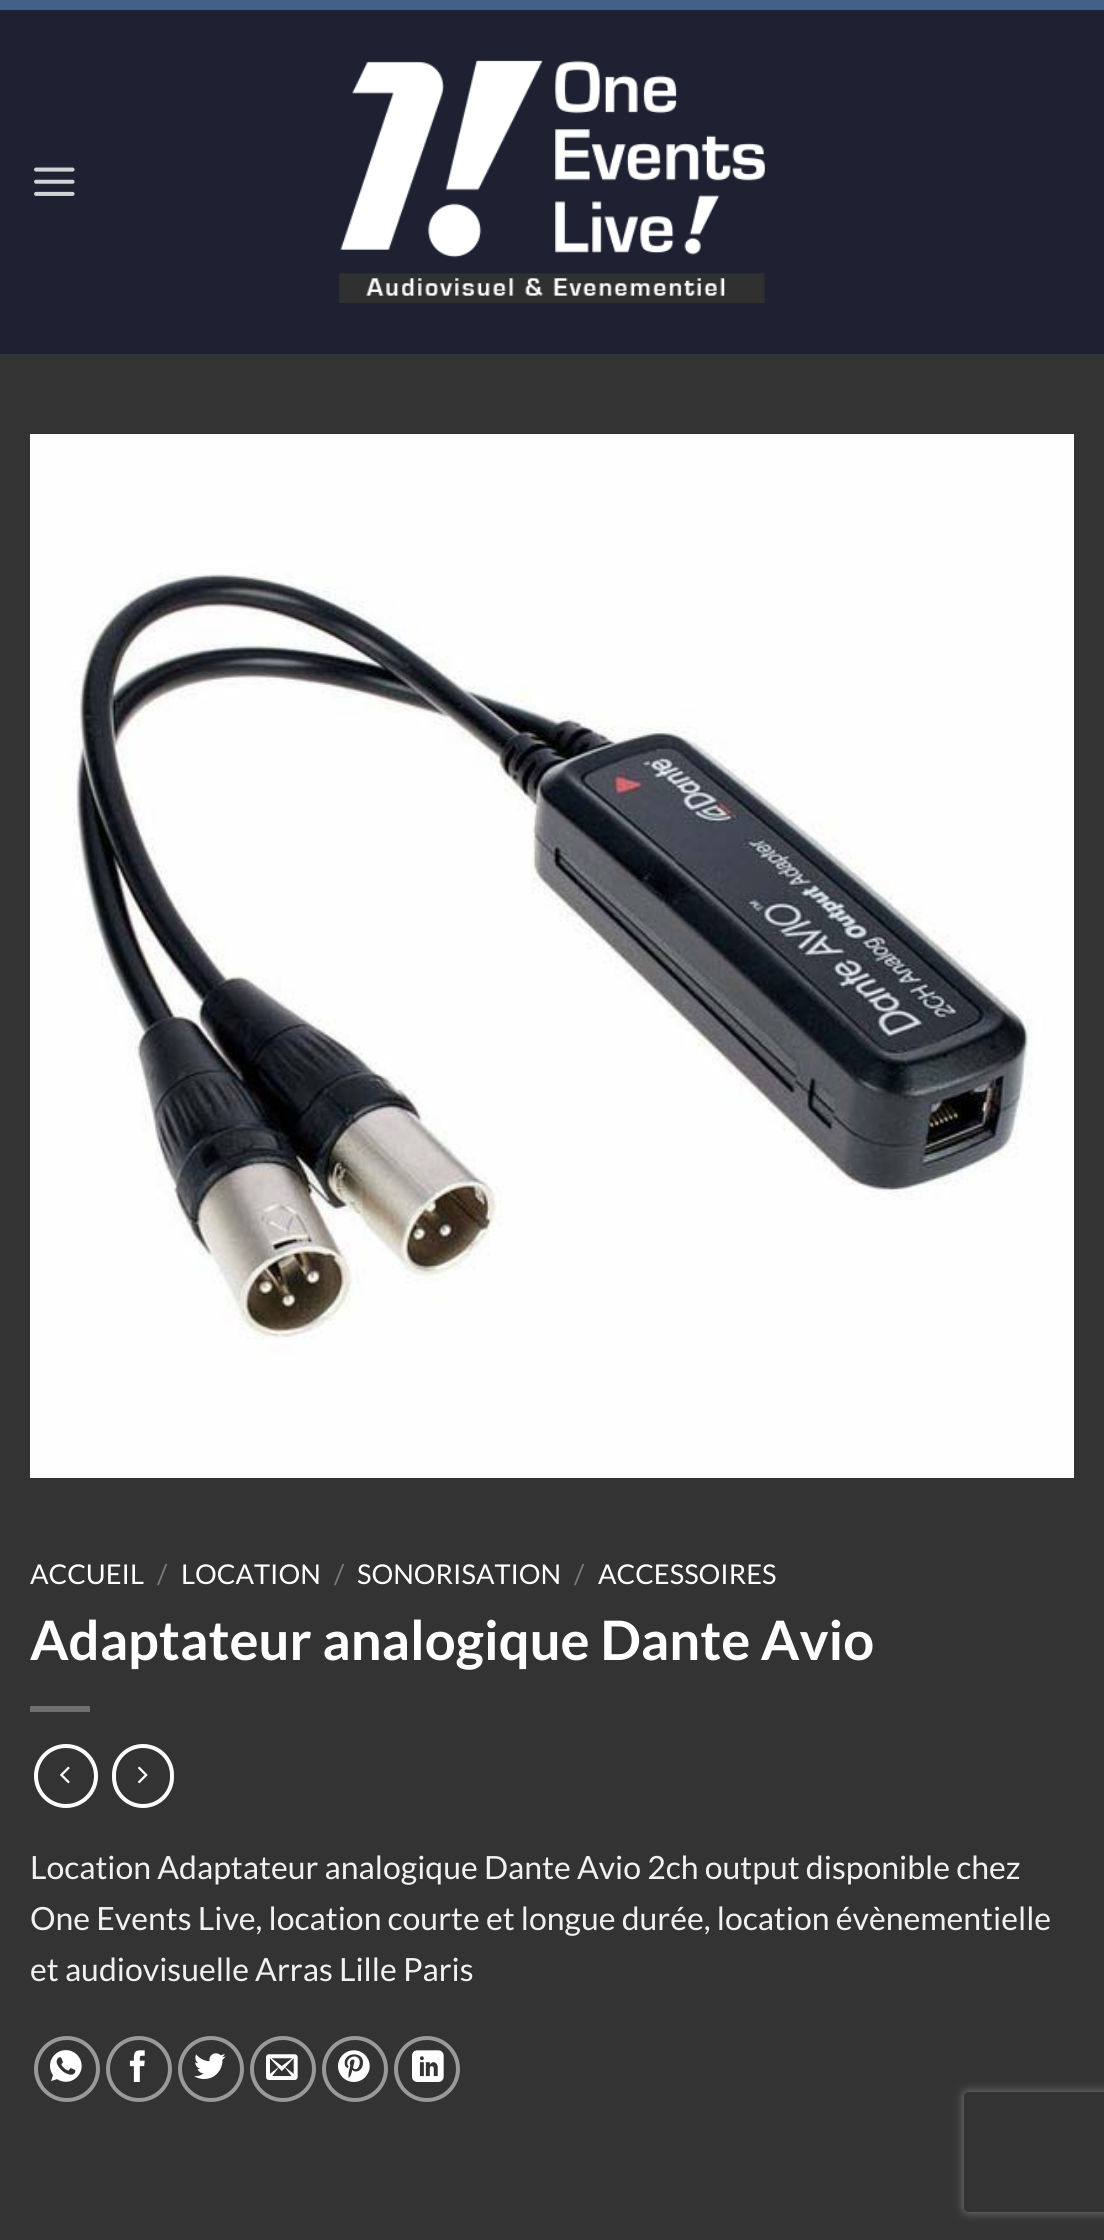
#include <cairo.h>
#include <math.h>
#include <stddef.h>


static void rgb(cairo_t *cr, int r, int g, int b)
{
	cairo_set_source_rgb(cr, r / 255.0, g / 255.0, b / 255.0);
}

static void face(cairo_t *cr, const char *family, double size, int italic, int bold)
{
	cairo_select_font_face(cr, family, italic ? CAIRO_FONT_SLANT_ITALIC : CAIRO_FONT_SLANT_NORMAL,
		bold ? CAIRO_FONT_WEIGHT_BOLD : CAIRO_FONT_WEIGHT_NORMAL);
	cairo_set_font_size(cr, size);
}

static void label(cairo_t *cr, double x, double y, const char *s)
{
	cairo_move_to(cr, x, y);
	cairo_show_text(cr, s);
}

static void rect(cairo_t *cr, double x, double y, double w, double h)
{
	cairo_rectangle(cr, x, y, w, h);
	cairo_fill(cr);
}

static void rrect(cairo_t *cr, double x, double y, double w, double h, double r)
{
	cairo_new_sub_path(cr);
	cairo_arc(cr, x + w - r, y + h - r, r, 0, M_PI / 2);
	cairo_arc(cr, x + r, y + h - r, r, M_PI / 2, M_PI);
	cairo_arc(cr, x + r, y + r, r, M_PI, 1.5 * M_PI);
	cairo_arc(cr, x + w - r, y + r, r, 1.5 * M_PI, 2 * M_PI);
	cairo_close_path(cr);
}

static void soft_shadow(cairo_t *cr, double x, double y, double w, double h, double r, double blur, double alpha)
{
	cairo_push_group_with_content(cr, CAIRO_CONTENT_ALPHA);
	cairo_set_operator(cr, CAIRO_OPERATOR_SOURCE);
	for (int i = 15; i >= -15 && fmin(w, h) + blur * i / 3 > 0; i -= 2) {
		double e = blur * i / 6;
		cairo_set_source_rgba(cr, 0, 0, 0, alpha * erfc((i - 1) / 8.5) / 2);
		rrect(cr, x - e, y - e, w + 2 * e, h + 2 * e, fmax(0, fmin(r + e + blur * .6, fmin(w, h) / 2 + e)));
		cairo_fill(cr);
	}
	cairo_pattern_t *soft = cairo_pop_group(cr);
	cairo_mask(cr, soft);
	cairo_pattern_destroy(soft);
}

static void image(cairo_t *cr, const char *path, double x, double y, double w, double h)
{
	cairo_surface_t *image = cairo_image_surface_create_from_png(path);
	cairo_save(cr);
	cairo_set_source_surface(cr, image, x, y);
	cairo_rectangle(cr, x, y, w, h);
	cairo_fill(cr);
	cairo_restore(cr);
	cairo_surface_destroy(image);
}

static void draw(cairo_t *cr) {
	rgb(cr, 51, 51, 51);
	cairo_paint(cr);
	rgb(cr, 68, 96, 132);
	rect(cr, 0, 0, 1104, 10);
	rgb(cr, 29, 33, 49);
	rect(cr, 0, 10, 1104, 344);
	image(cr, "image0.png", 34, 167, 41, 29);
	image(cr, "image1.png", 339, 60, 426, 243);
	image(cr, "image2.png", 30, 434, 1044, 1044);
	face(cr, "Lato", 27.25, 0, 0);
	rgb(cr, 255, 255, 255);
	label(cr, 30, 1584, "ACCUEIL");
	rgb(cr, 122, 122, 122);
	label(cr, 157, 1584, "/");
	rgb(cr, 255, 255, 255);
	label(cr, 181, 1584, "LOCATION");
	rgb(cr, 122, 122, 122);
	label(cr, 334, 1584, "/");
	rgb(cr, 255, 255, 255);
	label(cr, 357, 1584, "SONORISATION");
	rgb(cr, 122, 122, 122);
	label(cr, 574, 1584, "/");
	rgb(cr, 255, 255, 255);
	label(cr, 598, 1584, "ACCESSOIRES");
	face(cr, "Lato", 54.4, 0, 1);
	label(cr, 30, 1660, "Adaptateur analogique Dante Avio");
	rgb(cr, 112, 112, 112);
	rect(cr, 30, 1706, 60, 6);
	cairo_new_path(cr);
	cairo_arc(cr, 66, 1776, 30, 0, 2 * M_PI);
	rgb(cr, 255, 255, 255);
	cairo_set_line_width(cr, 4);
	cairo_stroke(cr);
	image(cr, "image3.png", 60, 1766, 10, 18);
	rrect(cr, 114, 1746, 58, 60, 29);
	cairo_stroke(cr);
	image(cr, "image4.png", 137, 1766, 11, 18);
	face(cr, "Lato", 32, 0, 0);
	rgb(cr, 241, 241, 241);
	label(cr, 30, 1879, "Location Adaptateur analogique Dante Avio 2ch output disponible chez");
	label(cr, 30, 1930, "One Events Live, location courte et longue durée, location évènementielle");
	label(cr, 30, 1981, "et audiovisuelle Arras Lille Paris");
	cairo_new_path(cr);
	cairo_arc(cr, 67, 2069, 31, 0, 2 * M_PI);
	rgb(cr, 153, 153, 153);
	cairo_stroke(cr);
	image(cr, "image5.png", 50, 2050, 32, 32);
	cairo_arc(cr, 139, 2069, 31, 0, 2 * M_PI);
	cairo_stroke(cr);
	image(cr, "image6.png", 129, 2050, 16, 32);
	cairo_arc(cr, 211, 2069, 31, 0, 2 * M_PI);
	cairo_stroke(cr);
	image(cr, "image7.png", 194, 2053, 32, 26);
	cairo_arc(cr, 283, 2069, 31, 0, 2 * M_PI);
	cairo_stroke(cr);
	image(cr, "image8.png", 266, 2054, 32, 26);
	cairo_arc(cr, 355, 2069, 31, 0, 2 * M_PI);
	cairo_stroke(cr);
	image(cr, "image9.png", 338, 2050, 32, 32);
	cairo_arc(cr, 427, 2069, 31, 0, 2 * M_PI);
	cairo_stroke(cr);
	image(cr, "image10.png", 412, 2050, 32, 32);
	cairo_save(cr);
	cairo_set_fill_rule(cr, CAIRO_FILL_RULE_EVEN_ODD);
	cairo_new_path(cr);
	cairo_move_to(cr, 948, 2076);
	cairo_line_to(cr, 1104, 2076);
	cairo_line_to(cr, 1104, 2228);
	cairo_line_to(cr, 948, 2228);
	cairo_close_path(cr);
	cairo_move_to(cr, 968, 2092);
	cairo_line_to(cr, 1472, 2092);
	cairo_curve_to(cr, 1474, 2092, 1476, 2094, 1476, 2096);
	cairo_line_to(cr, 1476, 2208);
	cairo_curve_to(cr, 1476, 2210, 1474, 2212, 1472, 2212);
	cairo_line_to(cr, 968, 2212);
	cairo_curve_to(cr, 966, 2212, 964, 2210, 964, 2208);
	cairo_line_to(cr, 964, 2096);
	cairo_curve_to(cr, 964, 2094, 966, 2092, 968, 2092);
	cairo_close_path(cr);
	cairo_clip(cr);
	rgb(cr, 128, 128, 128);
	soft_shadow(cr, 964, 2092, 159, 120, 4, 5, 1);
	cairo_restore(cr);
}

int main(void) {
	cairo_surface_t *surface = cairo_image_surface_create(CAIRO_FORMAT_RGB24, 1104, 2240);
	cairo_t *cr = cairo_create(surface);
	cairo_font_options_t *options = cairo_font_options_create();
	cairo_font_options_set_hint_metrics(options, CAIRO_HINT_METRICS_OFF);
	cairo_font_options_set_hint_style(options, CAIRO_HINT_STYLE_NONE);
	cairo_set_font_options(cr, options);
	cairo_set_miter_limit(cr, 4);
	draw(cr);
	cairo_surface_write_to_png(surface, "render.png");
	cairo_font_options_destroy(options);
	cairo_destroy(cr);
	cairo_surface_destroy(surface);
	return 0;
}
